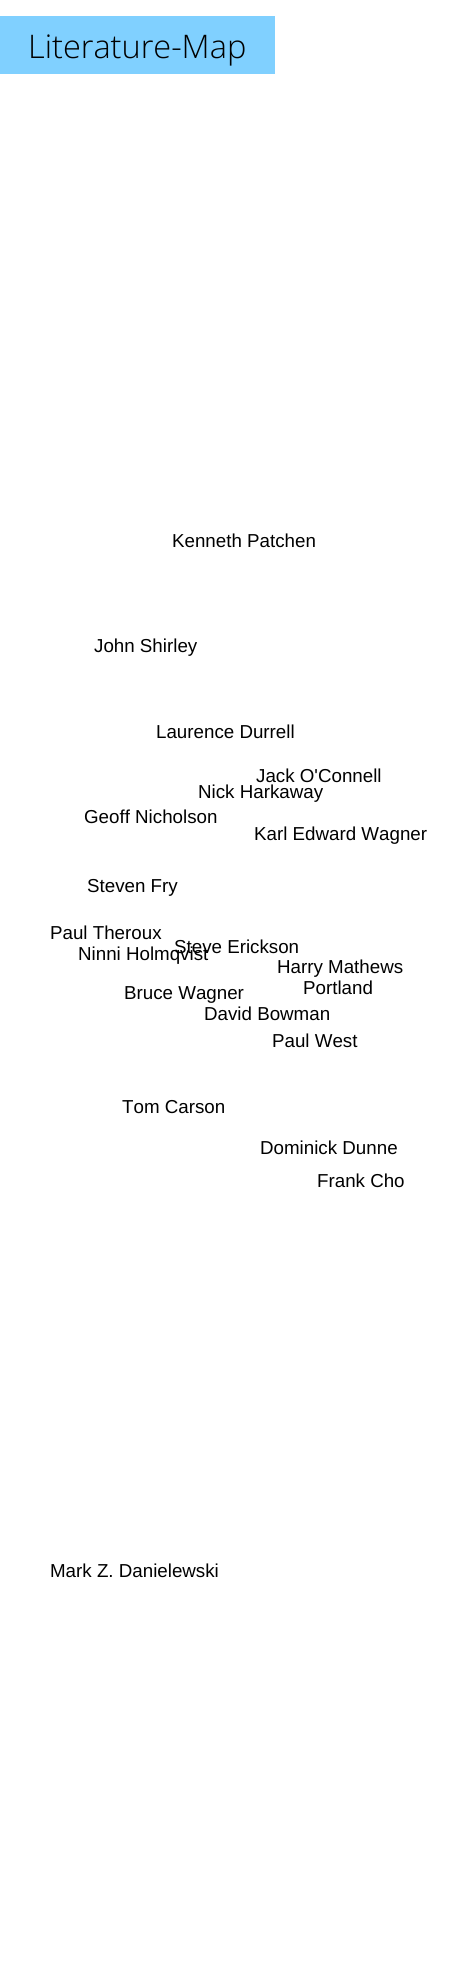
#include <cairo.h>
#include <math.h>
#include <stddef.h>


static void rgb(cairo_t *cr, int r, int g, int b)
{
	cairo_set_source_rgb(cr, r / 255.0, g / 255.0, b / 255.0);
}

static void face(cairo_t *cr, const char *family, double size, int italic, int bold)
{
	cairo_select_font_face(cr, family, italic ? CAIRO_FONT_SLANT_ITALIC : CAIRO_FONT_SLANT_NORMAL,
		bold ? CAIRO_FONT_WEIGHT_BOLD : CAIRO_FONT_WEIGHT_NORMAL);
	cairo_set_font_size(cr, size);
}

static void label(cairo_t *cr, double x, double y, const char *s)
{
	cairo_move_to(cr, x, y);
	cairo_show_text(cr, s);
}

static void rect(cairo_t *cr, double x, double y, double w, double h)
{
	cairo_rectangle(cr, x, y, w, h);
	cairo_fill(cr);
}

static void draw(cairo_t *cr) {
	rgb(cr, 255, 255, 255);
	cairo_paint(cr);
	rgb(cr, 128, 208, 255);
	rect(cr, 0, 16, 275, 58);
	face(cr, "Open Sans Light", 32.5, 0, 0);
	rgb(cr, 0, 0, 0);
	label(cr, 28, 58, "Literature-Map");
	face(cr, "Liberation Sans", 18.75, 0, 0);
	label(cr, 172, 547, "Kenneth Patchen");
	label(cr, 94, 652, "John Shirley");
	label(cr, 156, 738, "Laurence Durrell");
	label(cr, 256, 782, "Jack O'Connell");
	label(cr, 198, 798, "Nick Harkaway");
	label(cr, 84, 823, "Geoff Nicholson");
	label(cr, 254, 840, "Karl Edward Wagner");
	label(cr, 87, 892, "Steven Fry");
	label(cr, 50, 939, "Paul Theroux");
	label(cr, 174, 953, "Steve Erickson");
	label(cr, 78, 960, "Ninni Holmqvist");
	label(cr, 277, 973, "Harry Mathews");
	label(cr, 124, 999, "Bruce Wagner");
	label(cr, 303, 994, "Portland");
	label(cr, 204, 1020, "David Bowman");
	label(cr, 272, 1047, "Paul West");
	label(cr, 122, 1113, "Tom Carson");
	label(cr, 260, 1154, "Dominick Dunne");
	label(cr, 317, 1187, "Frank Cho");
	label(cr, 50, 1577, "Mark Z. Danielewski");
}

int main(void) {
	cairo_surface_t *surface = cairo_image_surface_create(CAIRO_FORMAT_RGB24, 473, 1965);
	cairo_t *cr = cairo_create(surface);
	cairo_font_options_t *options = cairo_font_options_create();
	cairo_font_options_set_hint_metrics(options, CAIRO_HINT_METRICS_OFF);
	cairo_font_options_set_hint_style(options, CAIRO_HINT_STYLE_NONE);
	cairo_set_font_options(cr, options);
	cairo_set_miter_limit(cr, 4);
	draw(cr);
	cairo_surface_write_to_png(surface, "render.png");
	cairo_font_options_destroy(options);
	cairo_destroy(cr);
	cairo_surface_destroy(surface);
	return 0;
}
